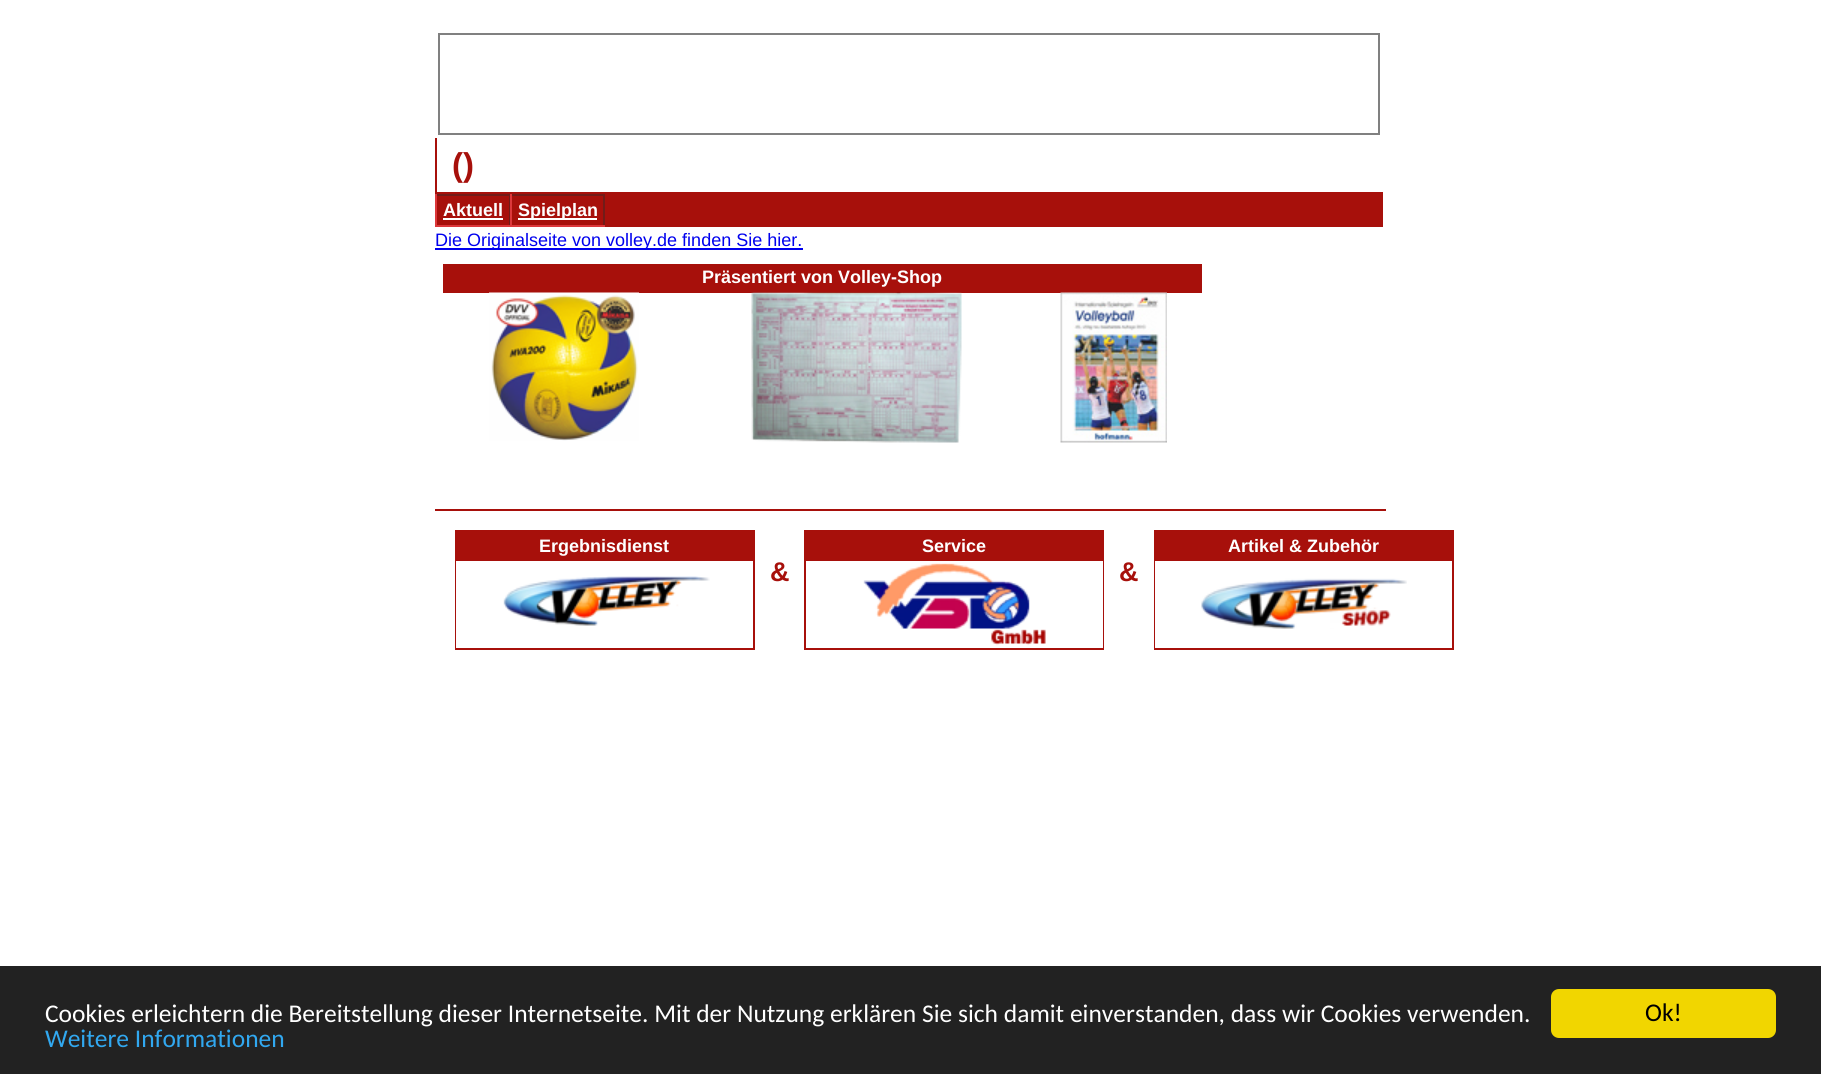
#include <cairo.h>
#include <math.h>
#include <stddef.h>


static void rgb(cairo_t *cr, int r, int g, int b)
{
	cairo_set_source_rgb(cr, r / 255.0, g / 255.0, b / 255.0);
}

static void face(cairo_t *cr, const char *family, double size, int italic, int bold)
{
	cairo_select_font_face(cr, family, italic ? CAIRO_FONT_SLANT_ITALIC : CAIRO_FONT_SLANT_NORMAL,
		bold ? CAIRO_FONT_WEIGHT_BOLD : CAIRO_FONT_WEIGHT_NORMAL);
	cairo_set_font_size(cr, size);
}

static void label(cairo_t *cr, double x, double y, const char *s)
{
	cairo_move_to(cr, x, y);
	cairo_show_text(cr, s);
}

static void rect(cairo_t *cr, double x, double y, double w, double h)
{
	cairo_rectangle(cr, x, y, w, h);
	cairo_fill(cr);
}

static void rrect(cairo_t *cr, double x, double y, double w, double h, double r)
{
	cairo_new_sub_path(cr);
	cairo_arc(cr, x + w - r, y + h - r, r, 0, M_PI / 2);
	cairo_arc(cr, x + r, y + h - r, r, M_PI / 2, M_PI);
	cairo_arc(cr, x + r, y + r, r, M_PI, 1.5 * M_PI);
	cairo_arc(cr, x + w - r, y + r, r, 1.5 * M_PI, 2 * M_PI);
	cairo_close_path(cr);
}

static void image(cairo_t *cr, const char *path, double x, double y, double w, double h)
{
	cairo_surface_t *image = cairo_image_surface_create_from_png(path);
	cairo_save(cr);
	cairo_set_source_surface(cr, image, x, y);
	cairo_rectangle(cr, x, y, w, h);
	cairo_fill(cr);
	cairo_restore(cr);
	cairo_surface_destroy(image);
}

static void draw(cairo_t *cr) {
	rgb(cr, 255, 255, 255);
	cairo_paint(cr);
	cairo_rectangle(cr, 439, 34, 940, 100);
	rgb(cr, 128, 128, 128);
	cairo_stroke(cr);
	rgb(cr, 167, 16, 11);
	rect(cr, 435, 192, 948, 2);
	rect(cr, 435, 138, 2, 56);
	face(cr, "Liberation Sans", 33, 0, 1);
	label(cr, 452, 176, "()");
	rect(cr, 437, 194, 946, 33);
	rgb(cr, 113, 28, 25);
	rect(cr, 435, 194, 170, 2);
	rect(cr, 509, 194, 1, 33);
	rgb(cr, 220, 56, 59);
	rect(cr, 435, 225, 75, 2);
	rect(cr, 435, 194, 2, 33);
	face(cr, "Liberation Sans", 18, 0, 1);
	rgb(cr, 255, 255, 255);
	label(cr, 443, 216, "Aktuell");
	rect(cr, 443, 218, 60, 2);
	rgb(cr, 113, 28, 25);
	rect(cr, 603, 194, 2, 33);
	rgb(cr, 220, 56, 59);
	rect(cr, 510, 225, 95, 2);
	rect(cr, 510, 194, 2, 33);
	rgb(cr, 255, 255, 255);
	rect(cr, 518, 218, 79, 2);
	label(cr, 518, 216, "Spielplan");
	rgb(cr, 0, 0, 238);
	rect(cr, 435, 248, 368, 2);
	face(cr, "Liberation Sans", 18, 0, 0);
	label(cr, 435, 246, "Die Originalseite von volley.de finden Sie hier.");
	rgb(cr, 167, 16, 11);
	rect(cr, 443, 264, 759, 29);
	face(cr, "Liberation Sans", 18, 0, 1);
	rgb(cr, 255, 255, 255);
	label(cr, 702, 283, "Präsentiert von Volley-Shop");
	image(cr, "image0.png", 489, 292, 150, 149);
	image(cr, "image1.png", 751, 292, 211, 151);
	image(cr, "image2.png", 1060, 292, 107, 151);
	rgb(cr, 167, 16, 11);
	rect(cr, 435, 509, 951, 2);
	cairo_rectangle(cr, 456, 531, 298, 118);
	cairo_stroke(cr);
	rect(cr, 457, 532, 296, 29);
	rgb(cr, 255, 255, 255);
	label(cr, 539, 552, "Ergebnisdienst");
	rect(cr, 456, 561, 1, 87);
	image(cr, "image3.png", 503, 576, 207, 50);
	cairo_rectangle(cr, 805, 531, 298, 118);
	rgb(cr, 167, 16, 11);
	cairo_stroke(cr);
	rect(cr, 806, 532, 296, 29);
	rgb(cr, 255, 255, 255);
	label(cr, 922, 552, "Service");
	rect(cr, 1102, 561, 1, 87);
	image(cr, "image4.png", 863, 563, 183, 83);
	cairo_rectangle(cr, 1155, 531, 298, 118);
	rgb(cr, 167, 16, 11);
	cairo_stroke(cr);
	rect(cr, 1156, 532, 296, 29);
	rgb(cr, 255, 255, 255);
	label(cr, 1228, 552, "Artikel & Zubehör");
	rect(cr, 1155, 561, 1, 87);
	image(cr, "image5.png", 1201, 578, 206, 51);
	face(cr, "Liberation Sans", 27, 0, 1);
	rgb(cr, 167, 16, 11);
	label(cr, 770, 581, "&");
	label(cr, 1119, 581, "&");
	rgb(cr, 34, 34, 34);
	rect(cr, 0, 966, 1821, 108);
	face(cr, "Carlito", 25.5, 0, 0);
	rgb(cr, 255, 255, 255);
	label(cr, 45, 1022, "Cookies erleichtern die Bereitstellung dieser Internetseite. Mit der Nutzung erklären Sie sich damit einverstanden, dass wir Cookies verwenden.");
	rgb(cr, 49, 168, 240);
	label(cr, 45, 1047, "Weitere Informationen");
	rgb(cr, 241, 214, 0);
	rrect(cr, 1551, 989, 225, 49, 8);
	cairo_fill(cr);
	rgb(cr, 0, 0, 0);
	label(cr, 1645, 1021, "Ok!");
}

int main(void) {
	cairo_surface_t *surface = cairo_image_surface_create(CAIRO_FORMAT_RGB24, 1821, 1074);
	cairo_t *cr = cairo_create(surface);
	cairo_font_options_t *options = cairo_font_options_create();
	cairo_font_options_set_hint_metrics(options, CAIRO_HINT_METRICS_OFF);
	cairo_font_options_set_hint_style(options, CAIRO_HINT_STYLE_NONE);
	cairo_set_font_options(cr, options);
	cairo_set_miter_limit(cr, 4);
	draw(cr);
	cairo_surface_write_to_png(surface, "render.png");
	cairo_font_options_destroy(options);
	cairo_destroy(cr);
	cairo_surface_destroy(surface);
	return 0;
}
